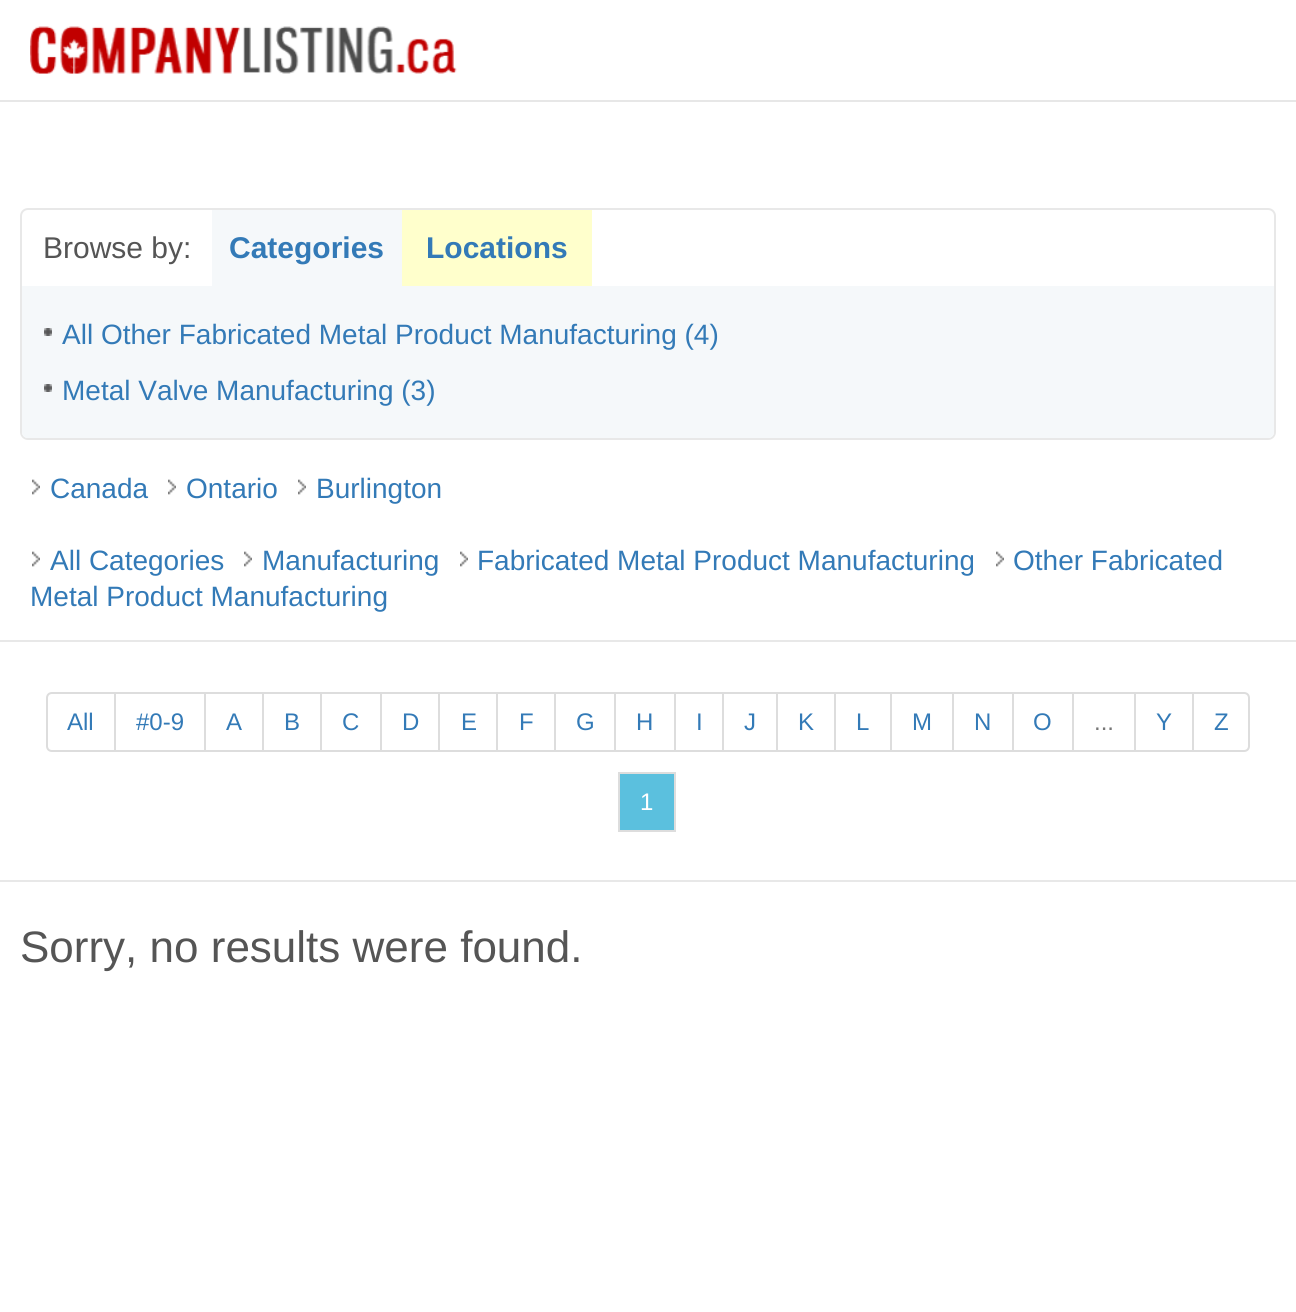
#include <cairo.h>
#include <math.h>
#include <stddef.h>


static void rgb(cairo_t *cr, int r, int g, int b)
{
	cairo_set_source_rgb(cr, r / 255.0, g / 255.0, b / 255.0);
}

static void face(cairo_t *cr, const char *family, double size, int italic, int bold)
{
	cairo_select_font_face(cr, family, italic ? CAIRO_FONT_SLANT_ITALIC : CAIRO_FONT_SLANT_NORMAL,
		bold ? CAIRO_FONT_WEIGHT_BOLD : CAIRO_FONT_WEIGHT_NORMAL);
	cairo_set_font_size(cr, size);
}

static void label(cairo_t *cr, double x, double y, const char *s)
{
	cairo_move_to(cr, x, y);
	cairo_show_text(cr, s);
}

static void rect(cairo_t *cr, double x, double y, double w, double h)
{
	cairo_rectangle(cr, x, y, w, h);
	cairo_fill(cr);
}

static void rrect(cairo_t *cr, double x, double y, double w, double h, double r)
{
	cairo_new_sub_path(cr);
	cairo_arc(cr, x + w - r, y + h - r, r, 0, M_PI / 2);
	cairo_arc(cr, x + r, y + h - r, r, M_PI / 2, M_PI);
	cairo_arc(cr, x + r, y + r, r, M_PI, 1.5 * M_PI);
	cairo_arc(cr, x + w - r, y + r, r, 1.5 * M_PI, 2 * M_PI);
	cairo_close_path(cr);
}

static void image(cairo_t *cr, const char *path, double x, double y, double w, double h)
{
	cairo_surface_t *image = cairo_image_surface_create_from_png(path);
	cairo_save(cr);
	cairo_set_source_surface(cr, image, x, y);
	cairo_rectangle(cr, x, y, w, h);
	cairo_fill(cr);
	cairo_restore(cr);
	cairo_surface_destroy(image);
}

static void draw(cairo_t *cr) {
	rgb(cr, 255, 255, 255);
	cairo_paint(cr);
	rgb(cr, 231, 231, 231);
	rect(cr, 0, 100, 1296, 2);
	image(cr, "image0.png", 30, 26, 427, 48);
	rrect(cr, 21, 209, 1254, 230, 7);
	rgb(cr, 232, 232, 232);
	cairo_stroke(cr);
	face(cr, "Liberation Sans", 30, 0, 0);
	rgb(cr, 85, 85, 85);
	label(cr, 43, 258, "Browse by:");
	rgb(cr, 245, 248, 250);
	rect(cr, 212, 210, 190, 76);
	face(cr, "Liberation Sans", 30, 0, 1);
	rgb(cr, 51, 122, 183);
	label(cr, 229, 258, "Categories");
	rgb(cr, 255, 255, 204);
	rect(cr, 402, 210, 190, 76);
	rgb(cr, 51, 122, 183);
	label(cr, 426, 258, "Locations");
	rgb(cr, 245, 248, 250);
	cairo_new_path(cr);
	cairo_move_to(cr, 22, 286);
	cairo_line_to(cr, 1274, 286);
	cairo_line_to(cr, 1274, 432);
	cairo_curve_to(cr, 1274, 435.5, 1271.5, 438, 1268, 438);
	cairo_line_to(cr, 28, 438);
	cairo_curve_to(cr, 24.5, 438, 22, 435.5, 22, 432);
	cairo_close_path(cr);
	cairo_fill(cr);
	image(cr, "image1.png", 44, 328, 8, 8);
	face(cr, "Liberation Sans", 28, 0, 0);
	rgb(cr, 51, 122, 183);
	label(cr, 62, 344, "All Other Fabricated Metal Product Manufacturing (4)");
	image(cr, "image1.png", 44, 384, 8, 8);
	label(cr, 62, 400, "Metal Valve Manufacturing (3)");
	image(cr, "image2.png", 32, 479, 8, 16);
	label(cr, 50, 498, "Canada");
	image(cr, "image2.png", 168, 479, 8, 16);
	label(cr, 186, 498, "Ontario");
	image(cr, "image2.png", 298, 479, 8, 16);
	label(cr, 316, 498, "Burlington");
	image(cr, "image2.png", 32, 551, 8, 16);
	label(cr, 50, 570, "All Categories");
	image(cr, "image2.png", 244, 551, 8, 16);
	label(cr, 262, 570, "Manufacturing");
	image(cr, "image2.png", 460, 551, 8, 16);
	label(cr, 477, 570, "Fabricated Metal Product Manufacturing");
	image(cr, "image2.png", 996, 551, 8, 16);
	label(cr, 1013, 570, "Other Fabricated");
	label(cr, 30, 606, "Metal Product Manufacturing");
	rgb(cr, 232, 232, 232);
	rect(cr, 0, 640, 1296, 2);
	rect(cr, 0, 880, 1296, 2);
	cairo_new_path(cr);
	cairo_move_to(cr, 52, 693);
	cairo_line_to(cr, 115, 693);
	cairo_line_to(cr, 115, 751);
	cairo_line_to(cr, 52, 751);
	cairo_curve_to(cr, 49, 751, 47, 749, 47, 746);
	cairo_line_to(cr, 47, 698);
	cairo_curve_to(cr, 47, 695, 49, 693, 52, 693);
	cairo_close_path(cr);
	rgb(cr, 221, 221, 221);
	cairo_stroke(cr);
	face(cr, "Liberation Sans", 24, 0, 0);
	rgb(cr, 51, 122, 183);
	label(cr, 67, 730, "All");
	cairo_rectangle(cr, 115, 693, 90, 58);
	rgb(cr, 221, 221, 221);
	cairo_stroke(cr);
	rgb(cr, 51, 122, 183);
	label(cr, 136, 730, "#0-9");
	cairo_rectangle(cr, 205, 693, 58, 58);
	rgb(cr, 221, 221, 221);
	cairo_stroke(cr);
	rgb(cr, 51, 122, 183);
	label(cr, 226, 730, "A");
	cairo_rectangle(cr, 263, 693, 58, 58);
	rgb(cr, 221, 221, 221);
	cairo_stroke(cr);
	rgb(cr, 51, 122, 183);
	label(cr, 284, 730, "B");
	cairo_rectangle(cr, 321, 693, 60, 58);
	rgb(cr, 221, 221, 221);
	cairo_stroke(cr);
	rgb(cr, 51, 122, 183);
	label(cr, 342, 730, "C");
	cairo_rectangle(cr, 381, 693, 58, 58);
	rgb(cr, 221, 221, 221);
	cairo_stroke(cr);
	rgb(cr, 51, 122, 183);
	label(cr, 402, 730, "D");
	cairo_rectangle(cr, 439, 693, 58, 58);
	rgb(cr, 221, 221, 221);
	cairo_stroke(cr);
	rgb(cr, 51, 122, 183);
	label(cr, 461, 730, "E");
	cairo_rectangle(cr, 497, 693, 58, 58);
	rgb(cr, 221, 221, 221);
	cairo_stroke(cr);
	rgb(cr, 51, 122, 183);
	label(cr, 519, 730, "F");
	cairo_rectangle(cr, 555, 693, 60, 58);
	rgb(cr, 221, 221, 221);
	cairo_stroke(cr);
	rgb(cr, 51, 122, 183);
	label(cr, 576, 730, "G");
	cairo_rectangle(cr, 615, 693, 60, 58);
	rgb(cr, 221, 221, 221);
	cairo_stroke(cr);
	rgb(cr, 51, 122, 183);
	label(cr, 636, 730, "H");
	cairo_rectangle(cr, 675, 693, 48, 58);
	rgb(cr, 221, 221, 221);
	cairo_stroke(cr);
	rgb(cr, 51, 122, 183);
	label(cr, 696, 730, "I");
	cairo_rectangle(cr, 723, 693, 54, 58);
	rgb(cr, 221, 221, 221);
	cairo_stroke(cr);
	rgb(cr, 51, 122, 183);
	label(cr, 744, 730, "J");
	cairo_rectangle(cr, 777, 693, 58, 58);
	rgb(cr, 221, 221, 221);
	cairo_stroke(cr);
	rgb(cr, 51, 122, 183);
	label(cr, 798, 730, "K");
	cairo_rectangle(cr, 835, 693, 56, 58);
	rgb(cr, 221, 221, 221);
	cairo_stroke(cr);
	rgb(cr, 51, 122, 183);
	label(cr, 856, 730, "L");
	cairo_rectangle(cr, 891, 693, 62, 58);
	rgb(cr, 221, 221, 221);
	cairo_stroke(cr);
	rgb(cr, 51, 122, 183);
	label(cr, 912, 730, "M");
	cairo_rectangle(cr, 953, 693, 60, 58);
	rgb(cr, 221, 221, 221);
	cairo_stroke(cr);
	rgb(cr, 51, 122, 183);
	label(cr, 974, 730, "N");
	cairo_rectangle(cr, 1013, 693, 60, 58);
	rgb(cr, 221, 221, 221);
	cairo_stroke(cr);
	rgb(cr, 51, 122, 183);
	label(cr, 1033, 730, "O");
	cairo_rectangle(cr, 1073, 693, 62, 58);
	rgb(cr, 221, 221, 221);
	cairo_stroke(cr);
	rgb(cr, 119, 119, 119);
	label(cr, 1094, 730, "...");
	cairo_rectangle(cr, 1135, 693, 58, 58);
	rgb(cr, 221, 221, 221);
	cairo_stroke(cr);
	rgb(cr, 51, 122, 183);
	label(cr, 1156, 730, "Y");
	rgb(cr, 255, 255, 255);
	cairo_new_path(cr);
	cairo_move_to(cr, 1193, 693);
	cairo_line_to(cr, 1244, 693);
	cairo_curve_to(cr, 1247, 693, 1249, 695, 1249, 698);
	cairo_line_to(cr, 1249, 746);
	cairo_curve_to(cr, 1249, 749, 1247, 751, 1244, 751);
	cairo_line_to(cr, 1193, 751);
	cairo_close_path(cr);
	cairo_fill_preserve(cr);
	rgb(cr, 221, 221, 221);
	cairo_stroke(cr);
	rgb(cr, 51, 122, 183);
	label(cr, 1214, 730, "Z");
	rgb(cr, 91, 192, 222);
	cairo_rectangle(cr, 619, 773, 56, 58);
	cairo_fill_preserve(cr);
	rgb(cr, 221, 221, 221);
	cairo_stroke(cr);
	rgb(cr, 255, 255, 255);
	label(cr, 640, 810, "1");
	face(cr, "Liberation Sans", 44, 0, 0);
	rgb(cr, 85, 85, 85);
	label(cr, 20, 962, "Sorry, no results were found.");
}

int main(void) {
	cairo_surface_t *surface = cairo_image_surface_create(CAIRO_FORMAT_RGB24, 1296, 1312);
	cairo_t *cr = cairo_create(surface);
	cairo_font_options_t *options = cairo_font_options_create();
	cairo_font_options_set_hint_metrics(options, CAIRO_HINT_METRICS_OFF);
	cairo_font_options_set_hint_style(options, CAIRO_HINT_STYLE_NONE);
	cairo_set_font_options(cr, options);
	cairo_set_miter_limit(cr, 4);
	draw(cr);
	cairo_surface_write_to_png(surface, "render.png");
	cairo_font_options_destroy(options);
	cairo_destroy(cr);
	cairo_surface_destroy(surface);
	return 0;
}
